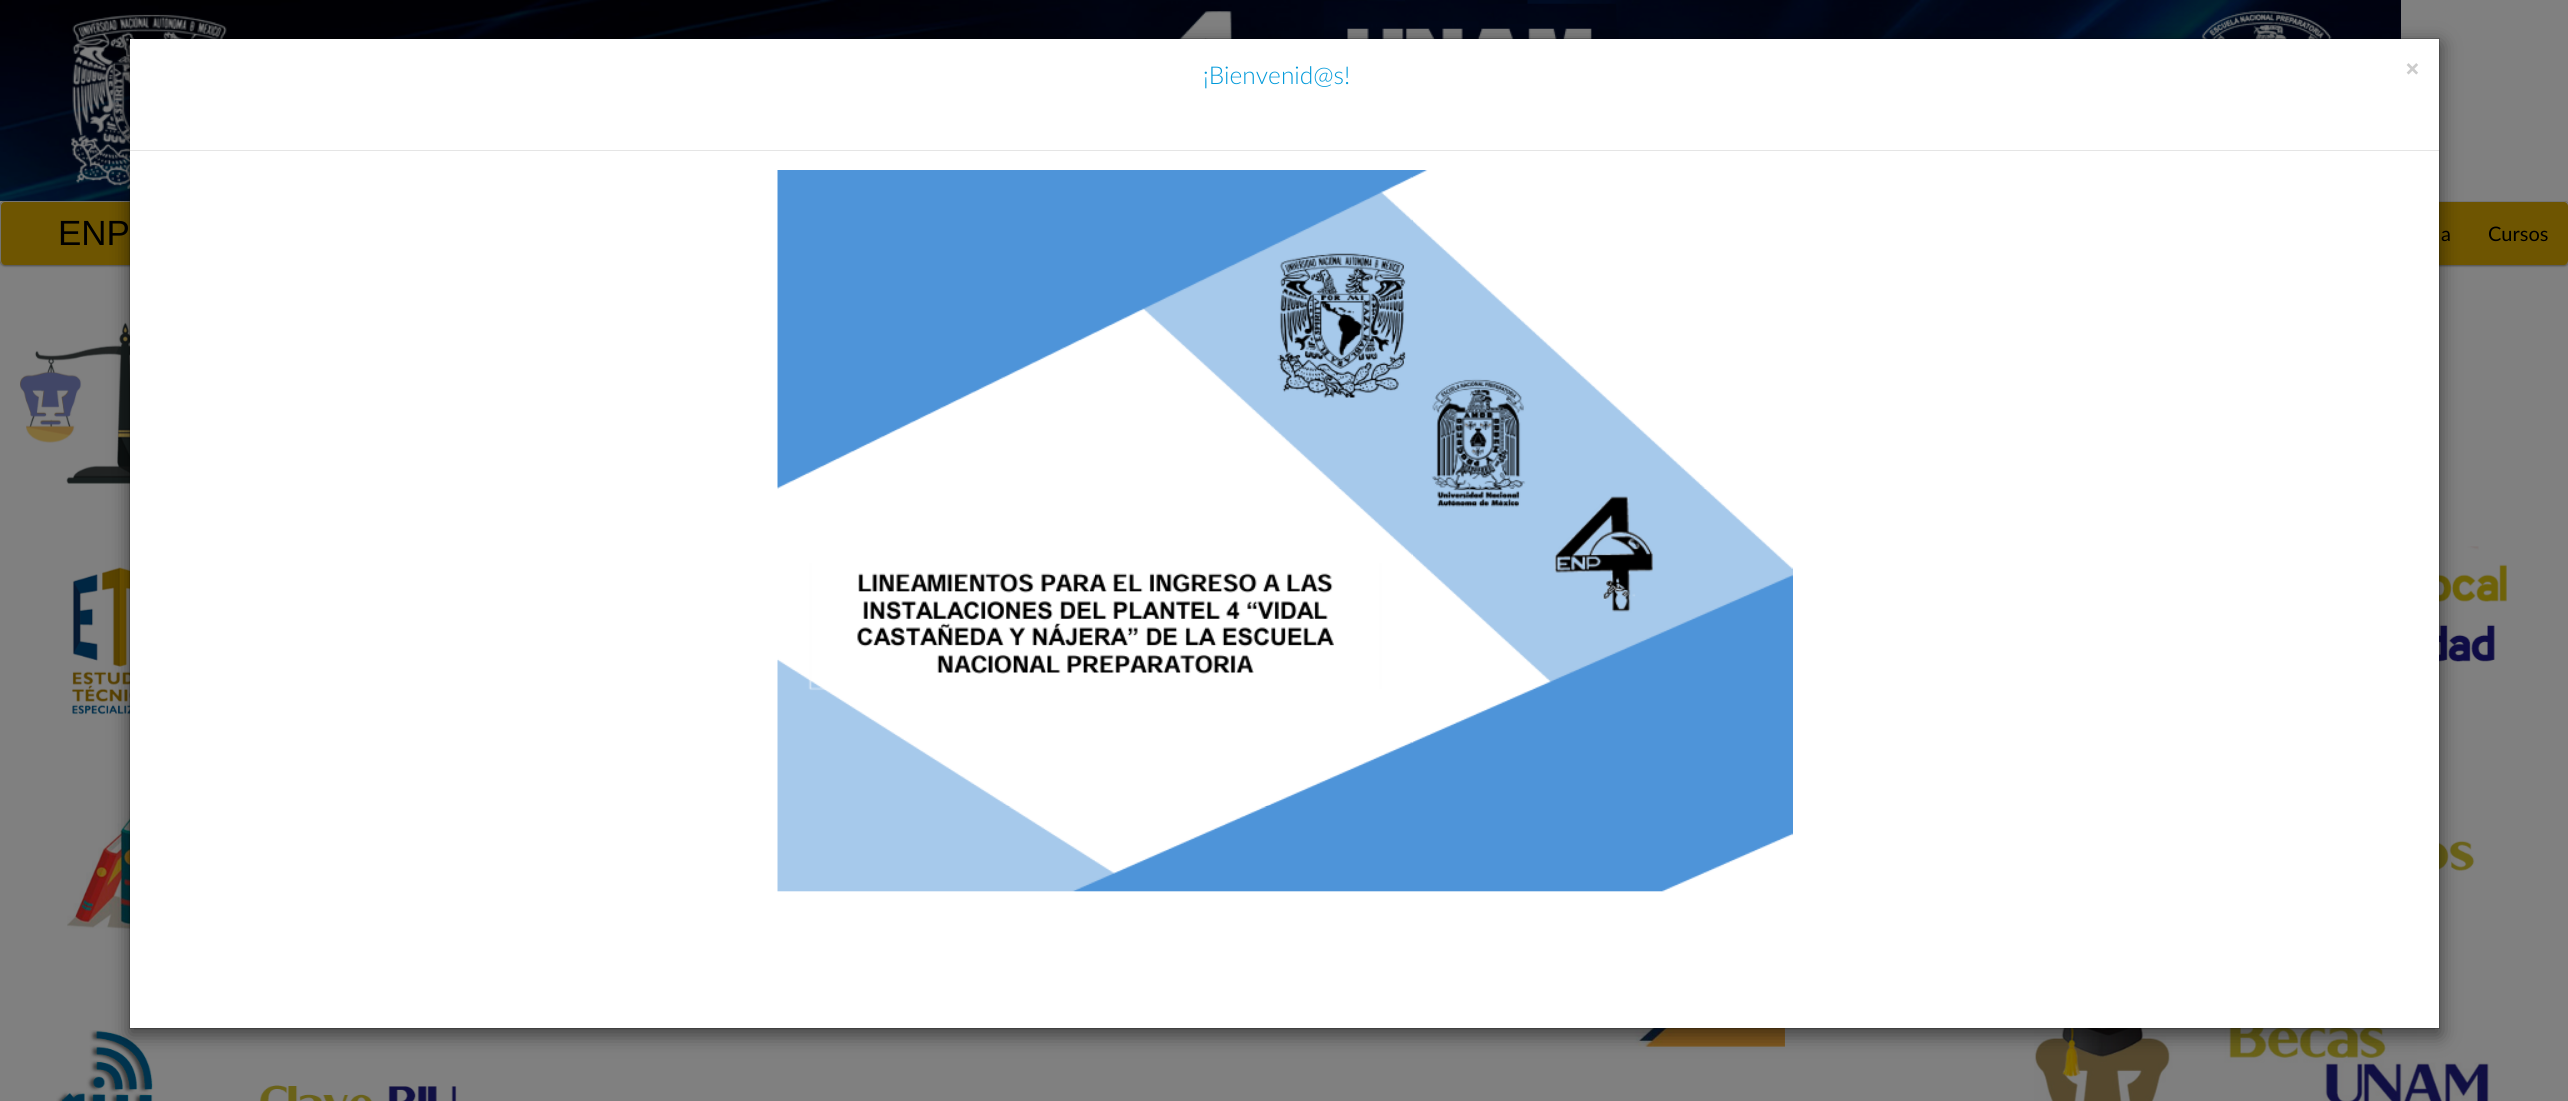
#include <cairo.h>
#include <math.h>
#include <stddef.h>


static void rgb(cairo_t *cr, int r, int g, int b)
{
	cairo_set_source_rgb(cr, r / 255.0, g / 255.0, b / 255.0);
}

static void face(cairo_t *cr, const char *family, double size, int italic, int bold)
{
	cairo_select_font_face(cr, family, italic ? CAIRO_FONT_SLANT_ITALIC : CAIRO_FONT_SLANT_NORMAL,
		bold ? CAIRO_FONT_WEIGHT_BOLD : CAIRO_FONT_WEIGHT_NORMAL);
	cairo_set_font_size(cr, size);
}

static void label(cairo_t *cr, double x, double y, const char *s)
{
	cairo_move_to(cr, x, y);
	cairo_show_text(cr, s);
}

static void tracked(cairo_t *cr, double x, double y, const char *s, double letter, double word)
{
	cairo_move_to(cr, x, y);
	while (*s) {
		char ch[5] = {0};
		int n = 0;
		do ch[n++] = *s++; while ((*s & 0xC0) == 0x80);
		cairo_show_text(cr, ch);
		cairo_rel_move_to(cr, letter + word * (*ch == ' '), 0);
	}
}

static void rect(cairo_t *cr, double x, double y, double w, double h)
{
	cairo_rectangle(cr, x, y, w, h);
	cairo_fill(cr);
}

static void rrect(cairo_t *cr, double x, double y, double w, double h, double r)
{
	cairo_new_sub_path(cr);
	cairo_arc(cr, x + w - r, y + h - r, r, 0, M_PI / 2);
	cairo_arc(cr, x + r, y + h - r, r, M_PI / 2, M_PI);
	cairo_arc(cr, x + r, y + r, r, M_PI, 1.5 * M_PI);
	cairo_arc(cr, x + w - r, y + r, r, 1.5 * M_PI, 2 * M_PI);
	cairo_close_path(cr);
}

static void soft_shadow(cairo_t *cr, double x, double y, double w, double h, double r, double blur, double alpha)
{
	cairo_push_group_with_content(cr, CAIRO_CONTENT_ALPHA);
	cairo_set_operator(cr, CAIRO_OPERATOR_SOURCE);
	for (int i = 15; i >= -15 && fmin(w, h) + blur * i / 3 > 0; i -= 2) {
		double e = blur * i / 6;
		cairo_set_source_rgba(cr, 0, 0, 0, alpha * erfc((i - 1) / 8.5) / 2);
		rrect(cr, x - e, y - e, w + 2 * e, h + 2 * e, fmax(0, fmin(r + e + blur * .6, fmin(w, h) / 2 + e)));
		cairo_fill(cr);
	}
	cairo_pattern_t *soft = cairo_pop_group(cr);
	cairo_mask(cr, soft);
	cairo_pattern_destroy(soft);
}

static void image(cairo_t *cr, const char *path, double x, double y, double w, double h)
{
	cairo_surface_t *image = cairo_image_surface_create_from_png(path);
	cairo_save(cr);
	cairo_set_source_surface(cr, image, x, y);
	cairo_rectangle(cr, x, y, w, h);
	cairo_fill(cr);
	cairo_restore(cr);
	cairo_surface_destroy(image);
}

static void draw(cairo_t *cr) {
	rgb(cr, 128, 128, 128);
	cairo_paint(cr);
	image(cr, "image0.png", 0, 0, 2401, 201);
	rgb(cr, 0, 0, 0);
	soft_shadow(cr, 0, 203, 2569, 63, 5, 1, 0.4);
	rgb(cr, 110, 85, 1);
	rrect(cr, 0, 201, 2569, 64, 5);
	cairo_fill(cr);
	rgb(cr, 116, 116, 116);
	cairo_set_fill_rule(cr, CAIRO_FILL_RULE_EVEN_ODD);
	cairo_new_path(cr);
	cairo_move_to(cr, 5, 201);
	cairo_line_to(cr, 2564, 201);
	cairo_curve_to(cr, 2567, 201, 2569, 203, 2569, 206);
	cairo_line_to(cr, 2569, 260);
	cairo_curve_to(cr, 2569, 263, 2567, 265, 2564, 265);
	cairo_line_to(cr, 5, 265);
	cairo_curve_to(cr, 2, 265, 0, 263, 0, 260);
	cairo_line_to(cr, 0, 206);
	cairo_curve_to(cr, 0, 203, 2, 201, 5, 201);
	cairo_close_path(cr);
	cairo_move_to(cr, 5, 202);
	cairo_line_to(cr, 2564, 202);
	cairo_curve_to(cr, 2566, 202, 2568, 204, 2568, 206);
	cairo_line_to(cr, 2568, 260);
	cairo_curve_to(cr, 2568, 263, 2566, 265, 2564, 265);
	cairo_line_to(cr, 5, 265);
	cairo_curve_to(cr, 3, 265, 1, 263, 1, 260);
	cairo_line_to(cr, 1, 206);
	cairo_curve_to(cr, 1, 204, 3, 202, 5, 202);
	cairo_close_path(cr);
	cairo_fill(cr);
	image(cr, "image2.png", 20, 322, 110, 162);
	image(cr, "image3.png", 72, 567, 58, 148);
	image(cr, "image4.png", 67, 799, 63, 134);
	image(cr, "image5.png", 56, 1030, 401, 71);
	image(cr, "image6.png", 784, 1028, 1001, 19);
	image(cr, "image7.png", 2439, 514, 68, 220);
	image(cr, "image8.png", 2439, 733, 36, 198);
	image(cr, "image9.png", 2034, 985, 455, 116);
	rgb(cr, 0, 0, 0);
	soft_shadow(cr, 129, 44, 2311, 991, 0, 9.5, 0.5);
	rgb(cr, 255, 255, 255);
	rect(cr, 130, 39, 2309, 989);
	cairo_rectangle(cr, 129.5, 38.5, 2310, 990);
	cairo_set_source_rgba(cr, 0, 0, 0, 0.2);
	cairo_set_line_width(cr, 1);
	cairo_stroke(cr);
	rgb(cr, 229, 229, 229);
	rect(cr, 130, 150, 2309, 1);
	face(cr, "Lato Light", 24.5, 0, 0);
	rgb(cr, 0, 153, 218);
	label(cr, 1203, 84, "¡Bienvenid@s!");
	face(cr, "Open Sans", 26, 0, 1);
	rgb(cr, 204, 204, 204);
	label(cr, 2405, 78, "×");
	image(cr, "image1.png", 777, 170, 1016, 722);
	face(cr, "Liberation Sans", 35, 0, 0);
	rgb(cr, 0, 0, 0);
	tracked(cr, 58, 245, "ENP", 0, -8);
	face(cr, "Lato", 20, 0, 0);
	label(cr, 2441, 241, "a");
	label(cr, 2488, 241, "Cursos");
}

int main(void) {
	cairo_surface_t *surface = cairo_image_surface_create(CAIRO_FORMAT_RGB24, 2568, 1101);
	cairo_t *cr = cairo_create(surface);
	cairo_font_options_t *options = cairo_font_options_create();
	cairo_font_options_set_hint_metrics(options, CAIRO_HINT_METRICS_OFF);
	cairo_font_options_set_hint_style(options, CAIRO_HINT_STYLE_NONE);
	cairo_set_font_options(cr, options);
	cairo_set_miter_limit(cr, 4);
	draw(cr);
	cairo_surface_write_to_png(surface, "render.png");
	cairo_font_options_destroy(options);
	cairo_destroy(cr);
	cairo_surface_destroy(surface);
	return 0;
}
